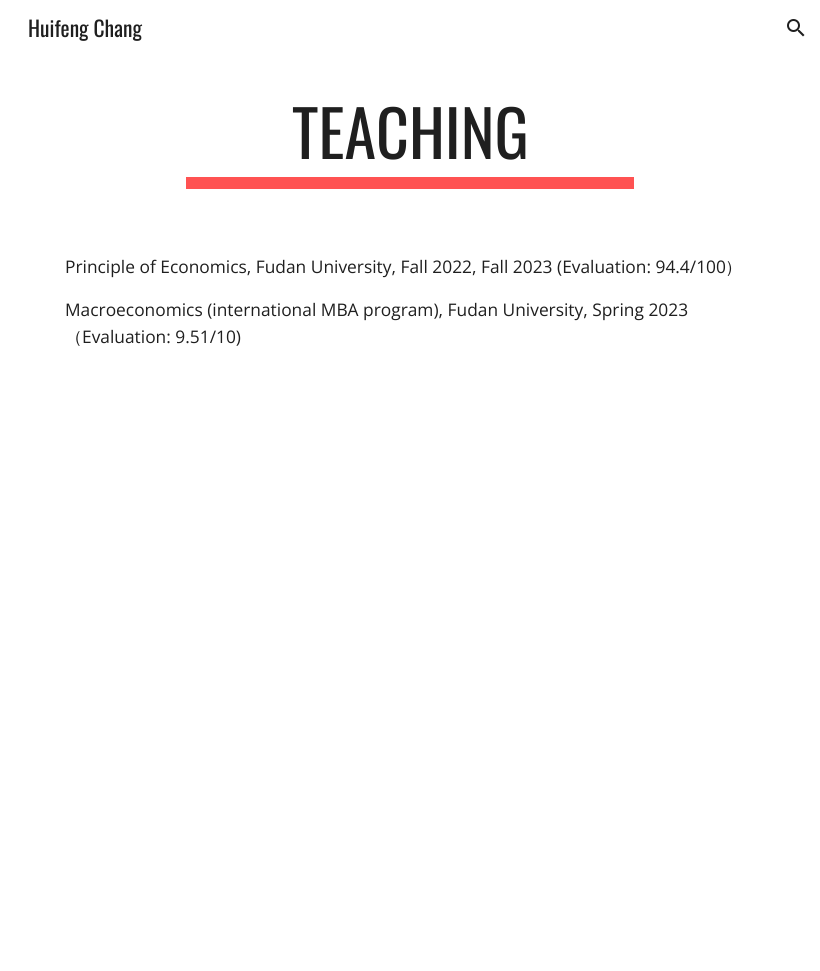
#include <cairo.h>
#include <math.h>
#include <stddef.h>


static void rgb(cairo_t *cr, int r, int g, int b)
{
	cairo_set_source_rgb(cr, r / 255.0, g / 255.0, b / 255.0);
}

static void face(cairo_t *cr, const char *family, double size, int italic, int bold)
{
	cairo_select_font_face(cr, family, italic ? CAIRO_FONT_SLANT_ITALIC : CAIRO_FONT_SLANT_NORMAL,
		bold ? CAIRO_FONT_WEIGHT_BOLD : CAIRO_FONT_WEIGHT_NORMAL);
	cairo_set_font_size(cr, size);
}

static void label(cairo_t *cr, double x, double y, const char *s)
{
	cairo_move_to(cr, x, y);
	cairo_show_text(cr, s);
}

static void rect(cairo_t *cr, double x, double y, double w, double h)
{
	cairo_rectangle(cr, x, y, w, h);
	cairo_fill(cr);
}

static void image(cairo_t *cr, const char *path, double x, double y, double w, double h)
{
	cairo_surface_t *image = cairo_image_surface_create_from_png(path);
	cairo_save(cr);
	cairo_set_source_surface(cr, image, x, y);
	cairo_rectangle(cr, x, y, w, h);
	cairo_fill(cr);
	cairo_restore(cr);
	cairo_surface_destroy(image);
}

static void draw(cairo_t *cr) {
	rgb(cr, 255, 255, 255);
	cairo_paint(cr);
	face(cr, "Oswald", 21.5, 0, 0);
	rgb(cr, 31, 31, 31);
	label(cr, 28, 37, "Huifeng Chang");
	image(cr, "image0.png", 787, 19, 18, 18);
	face(cr, "Oswald", 64, 0, 0);
	label(cr, 292, 159, "TEACHING");
	rgb(cr, 255, 82, 82);
	rect(cr, 186, 177, 448, 12);
	face(cr, "Open Sans", 17.35, 0, 0);
	rgb(cr, 31, 31, 31);
	label(cr, 65, 273, "Principle of Economics, Fudan University, Fall 2022, Fall 2023 (Evaluation: 94.4/100");
	face(cr, "WenQuanYi Zen Hei Medium", 17.35, 0, 0);
	label(cr, 725, 273, "）");
	face(cr, "Open Sans", 17.35, 0, 0);
	label(cr, 65, 316, "Macroeconomics (international MBA program), Fudan University, Spring 2023");
	face(cr, "WenQuanYi Zen Hei Medium", 17.35, 0, 0);
	label(cr, 65, 343, "（");
	face(cr, "Open Sans", 17.35, 0, 0);
	label(cr, 82, 343, "Evaluation: 9.51/10)");
}

int main(void) {
	cairo_surface_t *surface = cairo_image_surface_create(CAIRO_FORMAT_RGB24, 820, 971);
	cairo_t *cr = cairo_create(surface);
	cairo_font_options_t *options = cairo_font_options_create();
	cairo_font_options_set_hint_metrics(options, CAIRO_HINT_METRICS_OFF);
	cairo_font_options_set_hint_style(options, CAIRO_HINT_STYLE_NONE);
	cairo_set_font_options(cr, options);
	cairo_set_miter_limit(cr, 4);
	draw(cr);
	cairo_surface_write_to_png(surface, "render.png");
	cairo_font_options_destroy(options);
	cairo_destroy(cr);
	cairo_surface_destroy(surface);
	return 0;
}
